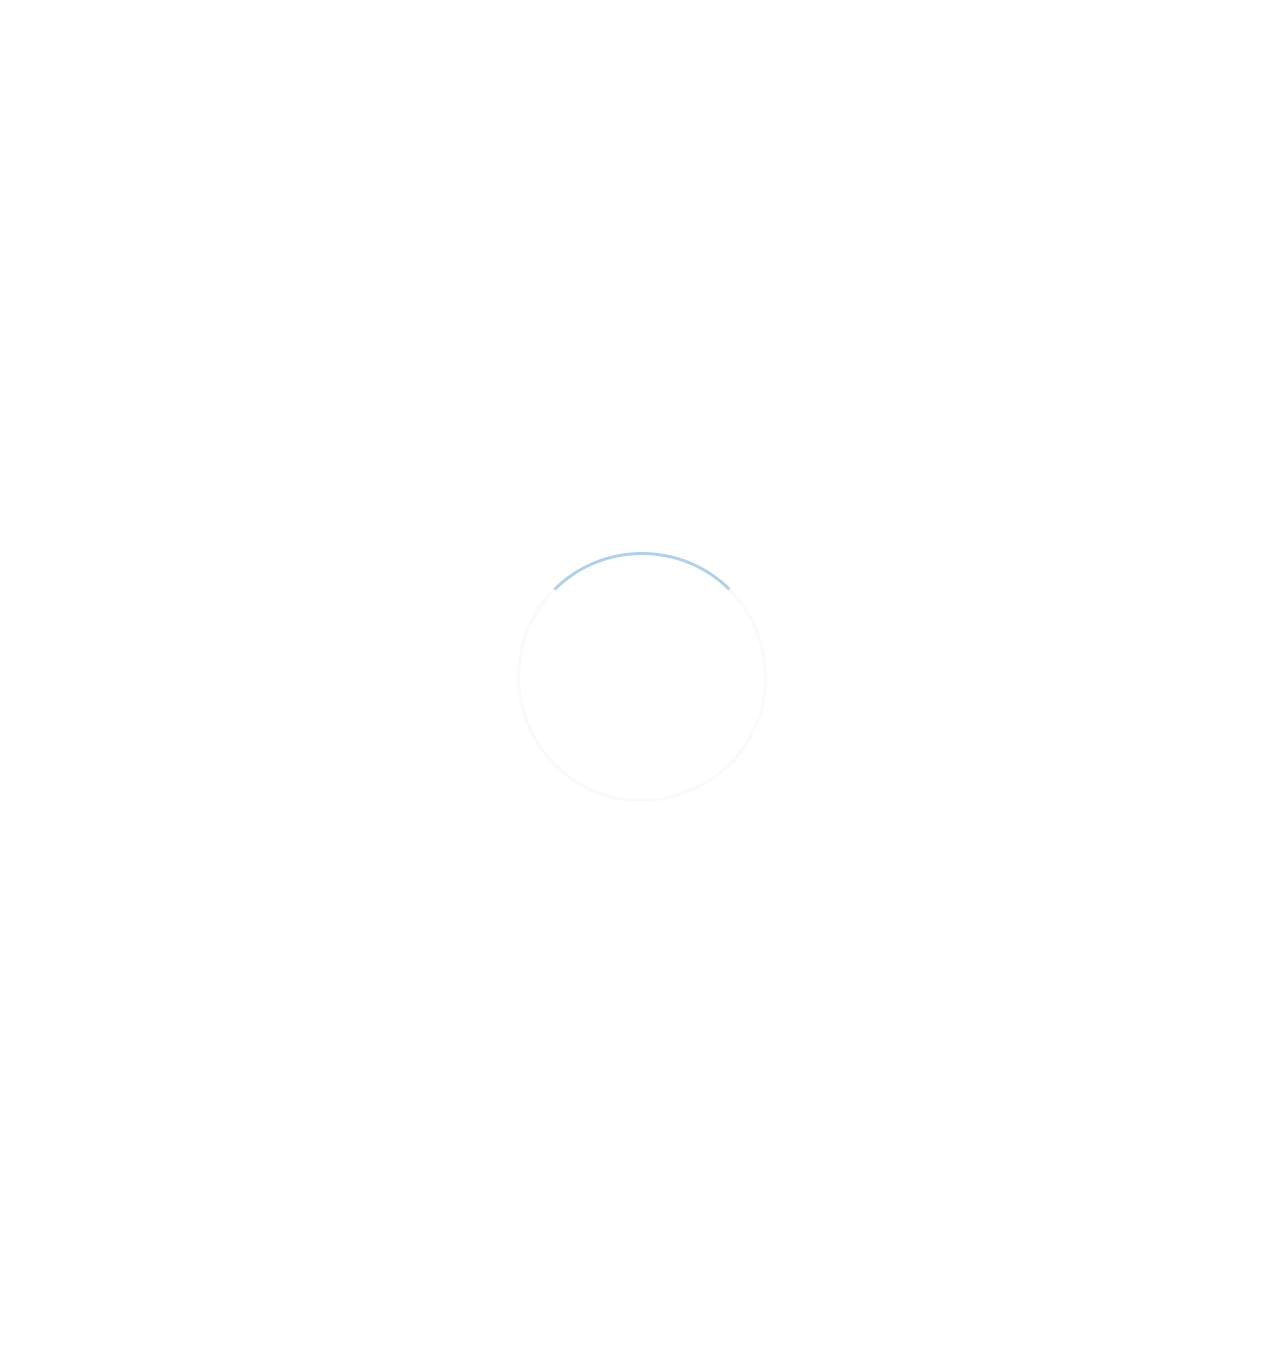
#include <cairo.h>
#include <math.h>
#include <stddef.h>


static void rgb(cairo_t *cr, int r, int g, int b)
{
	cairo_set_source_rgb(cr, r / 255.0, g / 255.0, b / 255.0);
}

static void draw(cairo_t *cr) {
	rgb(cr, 255, 255, 255);
	cairo_paint(cr);
	cairo_new_path(cr);
	cairo_move_to(cr, 554.5, 589.5);
	cairo_curve_to(cr, 602.5, 541.5, 681.5, 541.5, 729.5, 589.5);
	rgb(cr, 174, 208, 233);
	cairo_set_line_width(cr, 3);
	cairo_stroke(cr);
	cairo_new_path(cr);
	cairo_move_to(cr, 729.5, 589.5);
	cairo_curve_to(cr, 752.5, 612.5, 765.5, 644.5, 765.5, 677);
	cairo_curve_to(cr, 765.5, 786.5, 632, 842, 554.5, 764.5);
	cairo_curve_to(cr, 537.5, 747, 525.5, 725, 521, 701);
	cairo_curve_to(cr, 513, 661, 525.5, 618.5, 554.5, 589.5);
	rgb(cr, 250, 250, 250);
	cairo_stroke(cr);
}

int main(void) {
	cairo_surface_t *surface = cairo_image_surface_create(CAIRO_FORMAT_RGB24, 1283, 1353);
	cairo_t *cr = cairo_create(surface);
	cairo_font_options_t *options = cairo_font_options_create();
	cairo_font_options_set_hint_metrics(options, CAIRO_HINT_METRICS_OFF);
	cairo_font_options_set_hint_style(options, CAIRO_HINT_STYLE_NONE);
	cairo_set_font_options(cr, options);
	cairo_set_miter_limit(cr, 4);
	draw(cr);
	cairo_surface_write_to_png(surface, "render.png");
	cairo_font_options_destroy(options);
	cairo_destroy(cr);
	cairo_surface_destroy(surface);
	return 0;
}
